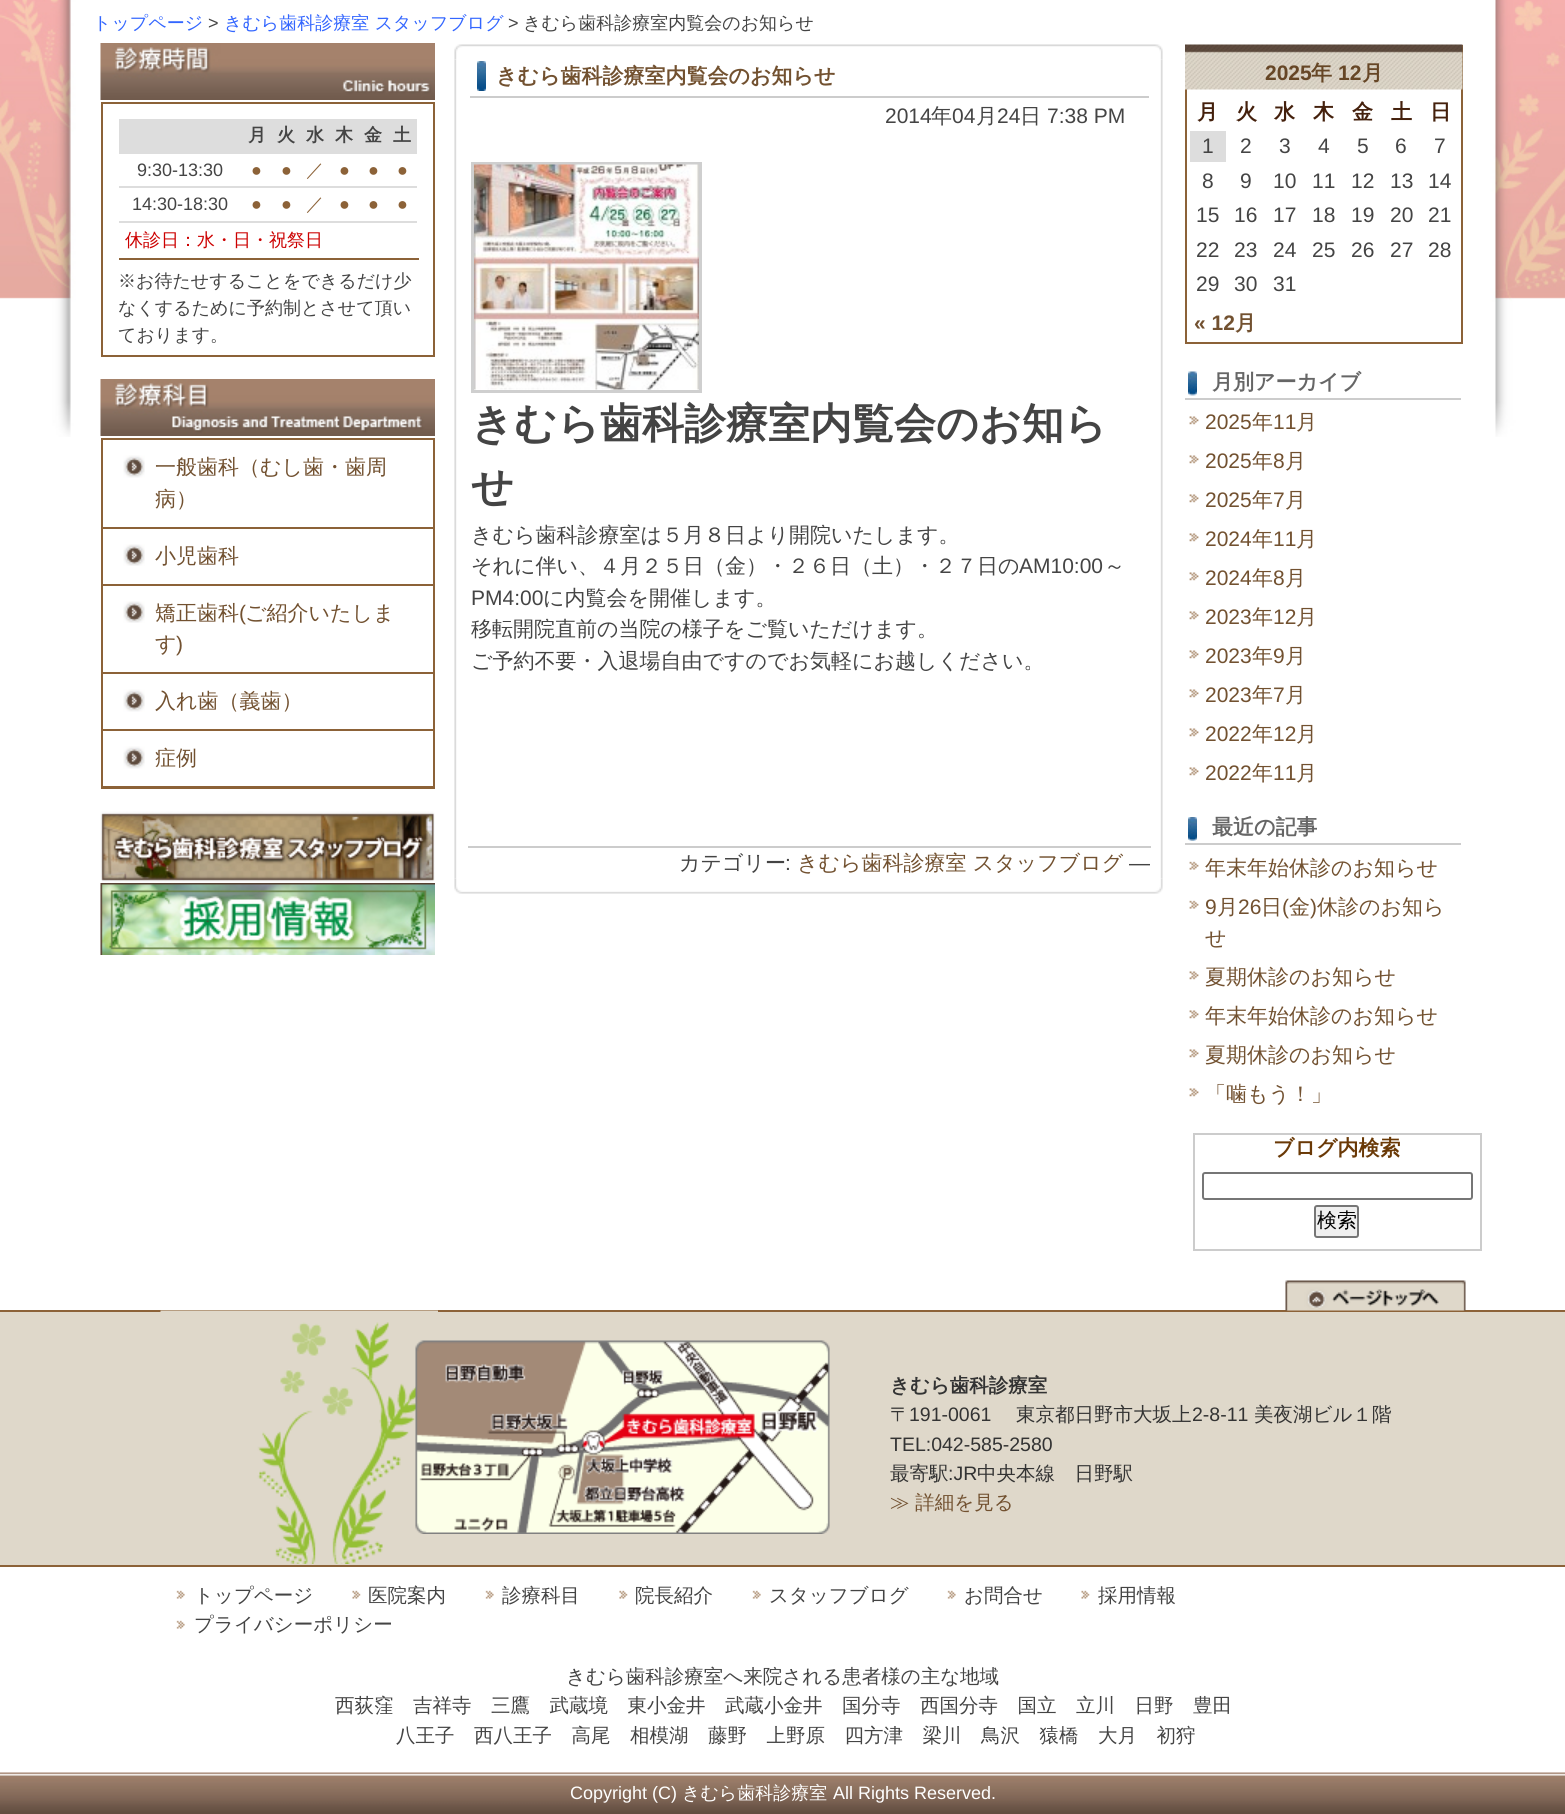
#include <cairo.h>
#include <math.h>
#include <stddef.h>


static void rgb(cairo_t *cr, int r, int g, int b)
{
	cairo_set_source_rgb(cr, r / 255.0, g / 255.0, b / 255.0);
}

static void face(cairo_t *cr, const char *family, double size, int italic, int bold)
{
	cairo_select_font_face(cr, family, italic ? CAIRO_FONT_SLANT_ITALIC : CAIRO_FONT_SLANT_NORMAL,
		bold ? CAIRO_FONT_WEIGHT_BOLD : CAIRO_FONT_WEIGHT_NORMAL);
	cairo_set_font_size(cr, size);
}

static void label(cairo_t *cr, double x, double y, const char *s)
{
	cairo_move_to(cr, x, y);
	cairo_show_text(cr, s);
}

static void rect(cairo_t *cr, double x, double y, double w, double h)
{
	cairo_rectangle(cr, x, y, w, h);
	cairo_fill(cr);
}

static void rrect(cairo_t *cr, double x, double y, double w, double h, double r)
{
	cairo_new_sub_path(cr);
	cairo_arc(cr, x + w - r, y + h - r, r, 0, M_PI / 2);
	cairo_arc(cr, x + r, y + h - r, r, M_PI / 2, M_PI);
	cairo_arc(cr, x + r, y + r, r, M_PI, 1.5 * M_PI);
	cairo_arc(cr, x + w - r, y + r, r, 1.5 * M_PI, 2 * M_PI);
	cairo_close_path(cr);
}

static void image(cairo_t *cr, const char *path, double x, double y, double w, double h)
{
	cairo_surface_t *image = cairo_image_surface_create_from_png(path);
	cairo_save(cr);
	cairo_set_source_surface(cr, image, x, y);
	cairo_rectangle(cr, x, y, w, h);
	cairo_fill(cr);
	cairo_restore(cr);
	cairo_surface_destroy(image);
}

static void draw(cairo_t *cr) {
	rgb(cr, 255, 255, 255);
	cairo_paint(cr);
	image(cr, "image0.png", 0, 0, 1565, 437);
	face(cr, "WenQuanYi Zen Hei Medium", 18, 0, 0);
	rgb(cr, 51, 102, 255);
	label(cr, 93, 29, "トップページ");
	face(cr, "Liberation Sans", 18, 0, 0);
	rgb(cr, 68, 68, 68);
	label(cr, 208, 29, ">");
	face(cr, "WenQuanYi Zen Hei Medium", 18, 0, 0);
	rgb(cr, 51, 102, 255);
	label(cr, 224, 29, "きむら歯科診療室 スタッフブログ");
	face(cr, "Liberation Sans", 18, 0, 0);
	rgb(cr, 68, 68, 68);
	label(cr, 508, 29, ">");
	face(cr, "WenQuanYi Zen Hei Medium", 18, 0, 0);
	label(cr, 523, 29, "きむら歯科診療室内覧会のお知らせ");
	image(cr, "image1.png", 100, 43, 335, 57);
	cairo_rectangle(cr, 102, 103, 332, 253);
	rgb(cr, 140, 98, 56);
	cairo_stroke(cr);
	rgb(cr, 221, 221, 221);
	rect(cr, 119, 119, 298, 35);
	face(cr, "WenQuanYi Zen Hei", 18, 0, 1);
	rgb(cr, 68, 68, 68);
	label(cr, 248, 141, "月");
	label(cr, 277, 141, "火");
	label(cr, 306, 141, "水");
	label(cr, 335, 141, "木");
	label(cr, 364, 141, "金");
	label(cr, 393, 141, "土");
	rgb(cr, 221, 221, 221);
	rect(cr, 119, 186, 298, 2);
	face(cr, "Liberation Sans", 18, 0, 0);
	rgb(cr, 68, 68, 68);
	label(cr, 137, 176, "9:30-13:30");
	rgb(cr, 140, 98, 56);
	label(cr, 251, 176, "●");
	label(cr, 281, 176, "●");
	face(cr, "WenQuanYi Zen Hei Medium", 18, 0, 0);
	label(cr, 306, 176, "／");
	face(cr, "Liberation Sans", 18, 0, 0);
	label(cr, 339, 176, "●");
	label(cr, 368, 176, "●");
	label(cr, 397, 176, "●");
	rgb(cr, 221, 221, 221);
	rect(cr, 119, 221, 298, 2);
	rgb(cr, 68, 68, 68);
	label(cr, 132, 210, "14:30-18:30");
	rgb(cr, 140, 98, 56);
	label(cr, 251, 210, "●");
	label(cr, 281, 210, "●");
	face(cr, "WenQuanYi Zen Hei Medium", 18, 0, 0);
	label(cr, 306, 210, "／");
	face(cr, "Liberation Sans", 18, 0, 0);
	label(cr, 339, 210, "●");
	label(cr, 368, 210, "●");
	label(cr, 397, 210, "●");
	face(cr, "WenQuanYi Zen Hei Medium", 18, 0, 0);
	rgb(cr, 204, 0, 0);
	label(cr, 125, 246, "休診日：水・日・祝祭日");
	rgb(cr, 140, 98, 56);
	rect(cr, 119, 258, 300, 2);
	rgb(cr, 68, 68, 68);
	label(cr, 118, 287, "※お待たせすることをできるだけ少");
	label(cr, 118, 314, "なくするために予約制とさせて頂い");
	label(cr, 118, 341, "ております。");
	image(cr, "image2.png", 100, 379, 335, 57);
	cairo_rectangle(cr, 102, 439, 332, 349);
	rgb(cr, 140, 98, 56);
	cairo_stroke(cr);
	image(cr, "image3.png", 123, 455, 22, 23);
	rect(cr, 102, 527, 332, 2);
	face(cr, "WenQuanYi Zen Hei Medium", 21, 0, 0);
	rgb(cr, 114, 81, 48);
	label(cr, 155, 474, "一般歯科（むし歯・歯周");
	label(cr, 155, 506, "病）");
	image(cr, "image4.png", 123, 544, 22, 22);
	rgb(cr, 140, 98, 56);
	rect(cr, 102, 584, 332, 2);
	rgb(cr, 114, 81, 48);
	label(cr, 155, 563, "小児歯科");
	image(cr, "image4.png", 123, 601, 22, 22);
	rgb(cr, 140, 98, 56);
	rect(cr, 102, 672, 332, 2);
	rgb(cr, 114, 81, 48);
	label(cr, 155, 620, "矯正歯科");
	face(cr, "Liberation Sans", 21, 0, 0);
	label(cr, 239, 620, "(");
	face(cr, "WenQuanYi Zen Hei Medium", 21, 0, 0);
	label(cr, 245, 620, "ご紹介いたしま");
	label(cr, 155, 651, "す");
	face(cr, "Liberation Sans", 21, 0, 0);
	label(cr, 176, 651, ")");
	image(cr, "image3.png", 123, 689, 22, 23);
	rgb(cr, 140, 98, 56);
	rect(cr, 102, 729, 332, 2);
	face(cr, "WenQuanYi Zen Hei Medium", 21, 0, 0);
	rgb(cr, 114, 81, 48);
	label(cr, 155, 708, "入れ歯（義歯）");
	image(cr, "image3.png", 123, 746, 22, 23);
	rgb(cr, 140, 98, 56);
	rect(cr, 102, 786, 332, 1);
	rgb(cr, 114, 81, 48);
	label(cr, 155, 765, "症例");
	image(cr, "image5.png", 100, 811, 335, 72);
	image(cr, "image6.png", 100, 883, 335, 72);
	image(cr, "image7.png", 454, 44, 709, 16);
	image(cr, "image8.png", 454, 59, 709, 820);
	image(cr, "image9.png", 477, 61, 9, 30);
	rgb(cr, 204, 204, 204);
	rect(cr, 470, 96, 679, 2);
	face(cr, "WenQuanYi Zen Hei", 21, 0, 1);
	rgb(cr, 114, 81, 48);
	label(cr, 496, 83, "きむら歯科診療室内覧会のお知らせ");
	face(cr, "Liberation Sans", 21, 0, 0);
	rgb(cr, 68, 68, 68);
	label(cr, 885, 123, "2014");
	face(cr, "WenQuanYi Zen Hei Medium", 21, 0, 0);
	label(cr, 931, 123, "年");
	face(cr, "Liberation Sans", 21, 0, 0);
	label(cr, 952, 123, "04");
	face(cr, "WenQuanYi Zen Hei Medium", 21, 0, 0);
	label(cr, 976, 123, "月");
	face(cr, "Liberation Sans", 21, 0, 0);
	label(cr, 997, 123, "24");
	face(cr, "WenQuanYi Zen Hei Medium", 21, 0, 0);
	label(cr, 1020, 123, "日");
	face(cr, "Liberation Sans", 21, 0, 0);
	label(cr, 1047, 123, "7:38 PM");
	cairo_rectangle(cr, 472.5, 163.5, 228, 228);
	rgb(cr, 207, 207, 207);
	cairo_set_line_width(cr, 3);
	cairo_stroke(cr);
	image(cr, "image10.png", 474, 164, 225, 226);
	face(cr, "WenQuanYi Zen Hei", 42, 0, 1);
	rgb(cr, 68, 68, 68);
	label(cr, 471, 438, "きむら歯科診療室内覧会のお知ら");
	label(cr, 471, 501, "せ");
	face(cr, "WenQuanYi Zen Hei Medium", 21, 0, 0);
	label(cr, 471, 542, "きむら歯科診療室は５月８日より開院いたします。");
	label(cr, 471, 573, "それに伴い、４月２５日（金）・２６日（土）・２７日の");
	face(cr, "Liberation Sans", 21, 0, 0);
	label(cr, 1019, 573, "AM10:00");
	face(cr, "WenQuanYi Zen Hei Medium", 21, 0, 0);
	label(cr, 1104, 573, "～");
	face(cr, "Liberation Sans", 21, 0, 0);
	label(cr, 471, 605, "PM4:00");
	face(cr, "WenQuanYi Zen Hei Medium", 21, 0, 0);
	label(cr, 543, 605, "に内覧会を開催します。");
	label(cr, 471, 636, "移転開院直前の当院の様子をご覧いただけます。");
	label(cr, 471, 668, "ご予約不要・入退場自由ですのでお気軽にお越しください。");
	rgb(cr, 204, 204, 204);
	rect(cr, 468, 846, 683, 2);
	rgb(cr, 68, 68, 68);
	label(cr, 679, 870, "カテゴリー");
	face(cr, "Liberation Sans", 21, 0, 0);
	label(cr, 785, 870, ":");
	face(cr, "WenQuanYi Zen Hei Medium", 21, 0, 0);
	rgb(cr, 114, 81, 48);
	label(cr, 797, 870, "きむら歯科診療室 スタッフブログ");
	face(cr, "Liberation Sans", 21, 0, 0);
	rgb(cr, 68, 68, 68);
	label(cr, 1129, 870, "—");
	image(cr, "image11.png", 454, 878, 709, 16);
	cairo_rectangle(cr, 1186, 46, 276, 297);
	rgb(cr, 140, 98, 56);
	cairo_set_line_width(cr, 2);
	cairo_stroke(cr);
	image(cr, "image12.png", 1185, 44, 278, 46);
	face(cr, "Liberation Sans", 21, 0, 1);
	rgb(cr, 102, 70, 38);
	label(cr, 1265, 80, "2025");
	face(cr, "WenQuanYi Zen Hei", 21, 0, 1);
	label(cr, 1311, 80, "年");
	face(cr, "Liberation Sans", 21, 0, 1);
	label(cr, 1338, 80, "12");
	face(cr, "WenQuanYi Zen Hei", 21, 0, 1);
	label(cr, 1362, 80, "月");
	rgb(cr, 68, 32, 12);
	label(cr, 1197, 119, "月");
	label(cr, 1236, 119, "火");
	label(cr, 1274, 119, "水");
	label(cr, 1313, 119, "木");
	label(cr, 1352, 119, "金");
	label(cr, 1391, 119, "土");
	label(cr, 1430, 119, "日");
	rgb(cr, 221, 221, 221);
	rect(cr, 1190, 131, 36, 31);
	face(cr, "Liberation Sans", 21, 0, 0);
	rgb(cr, 68, 68, 68);
	label(cr, 1202, 153, "1");
	label(cr, 1240, 153, "2");
	label(cr, 1279, 153, "3");
	label(cr, 1318, 153, "4");
	label(cr, 1357, 153, "5");
	label(cr, 1395, 153, "6");
	label(cr, 1434, 153, "7");
	label(cr, 1202, 188, "8");
	label(cr, 1240, 188, "9");
	label(cr, 1273, 188, "10");
	label(cr, 1312, 188, "11");
	label(cr, 1351, 188, "12");
	label(cr, 1390, 188, "13");
	label(cr, 1428, 188, "14");
	label(cr, 1196, 222, "15");
	label(cr, 1234, 222, "16");
	label(cr, 1273, 222, "17");
	label(cr, 1312, 222, "18");
	label(cr, 1351, 222, "19");
	label(cr, 1390, 222, "20");
	label(cr, 1428, 222, "21");
	label(cr, 1196, 257, "22");
	label(cr, 1234, 257, "23");
	label(cr, 1273, 257, "24");
	label(cr, 1312, 257, "25");
	label(cr, 1351, 257, "26");
	label(cr, 1390, 257, "27");
	label(cr, 1428, 257, "28");
	label(cr, 1196, 291, "29");
	label(cr, 1234, 291, "30");
	label(cr, 1273, 291, "31");
	face(cr, "Liberation Sans", 21, 0, 1);
	rgb(cr, 114, 81, 48);
	label(cr, 1194, 330, "« 12");
	face(cr, "WenQuanYi Zen Hei", 21, 0, 1);
	label(cr, 1235, 330, "月");
	image(cr, "image13.png", 1188, 371, 9, 25);
	rgb(cr, 204, 204, 204);
	rect(cr, 1185, 398, 276, 2);
	rgb(cr, 102, 102, 102);
	label(cr, 1212, 389, "月別アーカイブ");
	image(cr, "image14.png", 1189, 416, 10, 9);
	face(cr, "Liberation Sans", 21, 0, 0);
	rgb(cr, 114, 81, 48);
	label(cr, 1205, 429, "2025");
	face(cr, "WenQuanYi Zen Hei Medium", 21, 0, 0);
	label(cr, 1252, 429, "年");
	face(cr, "Liberation Sans", 21, 0, 0);
	label(cr, 1273, 429, "11");
	face(cr, "WenQuanYi Zen Hei Medium", 21, 0, 0);
	label(cr, 1296, 429, "月");
	image(cr, "image14.png", 1189, 455, 10, 9);
	face(cr, "Liberation Sans", 21, 0, 0);
	label(cr, 1205, 468, "2025");
	face(cr, "WenQuanYi Zen Hei Medium", 21, 0, 0);
	label(cr, 1252, 468, "年");
	face(cr, "Liberation Sans", 21, 0, 0);
	label(cr, 1273, 468, "8");
	face(cr, "WenQuanYi Zen Hei Medium", 21, 0, 0);
	label(cr, 1285, 468, "月");
	image(cr, "image14.png", 1189, 494, 10, 9);
	face(cr, "Liberation Sans", 21, 0, 0);
	label(cr, 1205, 507, "2025");
	face(cr, "WenQuanYi Zen Hei Medium", 21, 0, 0);
	label(cr, 1252, 507, "年");
	face(cr, "Liberation Sans", 21, 0, 0);
	label(cr, 1273, 507, "7");
	face(cr, "WenQuanYi Zen Hei Medium", 21, 0, 0);
	label(cr, 1285, 507, "月");
	image(cr, "image14.png", 1189, 533, 10, 9);
	face(cr, "Liberation Sans", 21, 0, 0);
	label(cr, 1205, 546, "2024");
	face(cr, "WenQuanYi Zen Hei Medium", 21, 0, 0);
	label(cr, 1252, 546, "年");
	face(cr, "Liberation Sans", 21, 0, 0);
	label(cr, 1273, 546, "11");
	face(cr, "WenQuanYi Zen Hei Medium", 21, 0, 0);
	label(cr, 1296, 546, "月");
	image(cr, "image14.png", 1189, 572, 10, 9);
	face(cr, "Liberation Sans", 21, 0, 0);
	label(cr, 1205, 585, "2024");
	face(cr, "WenQuanYi Zen Hei Medium", 21, 0, 0);
	label(cr, 1252, 585, "年");
	face(cr, "Liberation Sans", 21, 0, 0);
	label(cr, 1273, 585, "8");
	face(cr, "WenQuanYi Zen Hei Medium", 21, 0, 0);
	label(cr, 1285, 585, "月");
	image(cr, "image14.png", 1189, 611, 10, 9);
	face(cr, "Liberation Sans", 21, 0, 0);
	label(cr, 1205, 624, "2023");
	face(cr, "WenQuanYi Zen Hei Medium", 21, 0, 0);
	label(cr, 1252, 624, "年");
	face(cr, "Liberation Sans", 21, 0, 0);
	label(cr, 1273, 624, "12");
	face(cr, "WenQuanYi Zen Hei Medium", 21, 0, 0);
	label(cr, 1296, 624, "月");
	image(cr, "image14.png", 1189, 650, 10, 9);
	face(cr, "Liberation Sans", 21, 0, 0);
	label(cr, 1205, 663, "2023");
	face(cr, "WenQuanYi Zen Hei Medium", 21, 0, 0);
	label(cr, 1252, 663, "年");
	face(cr, "Liberation Sans", 21, 0, 0);
	label(cr, 1273, 663, "9");
	face(cr, "WenQuanYi Zen Hei Medium", 21, 0, 0);
	label(cr, 1285, 663, "月");
	image(cr, "image14.png", 1189, 689, 10, 9);
	face(cr, "Liberation Sans", 21, 0, 0);
	label(cr, 1205, 702, "2023");
	face(cr, "WenQuanYi Zen Hei Medium", 21, 0, 0);
	label(cr, 1252, 702, "年");
	face(cr, "Liberation Sans", 21, 0, 0);
	label(cr, 1273, 702, "7");
	face(cr, "WenQuanYi Zen Hei Medium", 21, 0, 0);
	label(cr, 1285, 702, "月");
	image(cr, "image14.png", 1189, 728, 10, 9);
	face(cr, "Liberation Sans", 21, 0, 0);
	label(cr, 1205, 741, "2022");
	face(cr, "WenQuanYi Zen Hei Medium", 21, 0, 0);
	label(cr, 1252, 741, "年");
	face(cr, "Liberation Sans", 21, 0, 0);
	label(cr, 1273, 741, "12");
	face(cr, "WenQuanYi Zen Hei Medium", 21, 0, 0);
	label(cr, 1296, 741, "月");
	image(cr, "image14.png", 1189, 767, 10, 9);
	face(cr, "Liberation Sans", 21, 0, 0);
	label(cr, 1205, 780, "2022");
	face(cr, "WenQuanYi Zen Hei Medium", 21, 0, 0);
	label(cr, 1252, 780, "年");
	face(cr, "Liberation Sans", 21, 0, 0);
	label(cr, 1273, 780, "11");
	face(cr, "WenQuanYi Zen Hei Medium", 21, 0, 0);
	label(cr, 1296, 780, "月");
	image(cr, "image15.png", 1188, 817, 9, 24);
	rgb(cr, 204, 204, 204);
	rect(cr, 1185, 843, 276, 2);
	face(cr, "WenQuanYi Zen Hei", 21, 0, 1);
	rgb(cr, 102, 102, 102);
	label(cr, 1212, 834, "最近の記事");
	image(cr, "image16.png", 1189, 861, 10, 9);
	face(cr, "WenQuanYi Zen Hei Medium", 21, 0, 0);
	rgb(cr, 114, 81, 48);
	label(cr, 1205, 875, "年末年始休診のお知らせ");
	image(cr, "image16.png", 1189, 900, 10, 9);
	face(cr, "Liberation Sans", 21, 0, 0);
	label(cr, 1205, 914, "9");
	face(cr, "WenQuanYi Zen Hei Medium", 21, 0, 0);
	label(cr, 1217, 914, "月");
	face(cr, "Liberation Sans", 21, 0, 0);
	label(cr, 1238, 914, "26");
	face(cr, "WenQuanYi Zen Hei Medium", 21, 0, 0);
	label(cr, 1261, 914, "日");
	face(cr, "Liberation Sans", 21, 0, 0);
	label(cr, 1282, 914, "(");
	face(cr, "WenQuanYi Zen Hei Medium", 21, 0, 0);
	label(cr, 1289, 914, "金");
	face(cr, "Liberation Sans", 21, 0, 0);
	label(cr, 1310, 914, ")");
	face(cr, "WenQuanYi Zen Hei Medium", 21, 0, 0);
	label(cr, 1317, 914, "休診のお知ら");
	label(cr, 1205, 945, "せ");
	image(cr, "image14.png", 1189, 971, 10, 9);
	label(cr, 1205, 984, "夏期休診のお知らせ");
	image(cr, "image14.png", 1189, 1010, 10, 9);
	label(cr, 1205, 1023, "年末年始休診のお知らせ");
	image(cr, "image14.png", 1189, 1049, 10, 9);
	label(cr, 1205, 1062, "夏期休診のお知らせ");
	image(cr, "image14.png", 1189, 1088, 10, 9);
	label(cr, 1205, 1101, "「噛もう！」");
	cairo_rectangle(cr, 1194, 1134, 287, 116);
	rgb(cr, 204, 204, 204);
	cairo_stroke(cr);
	face(cr, "WenQuanYi Zen Hei", 21, 0, 1);
	rgb(cr, 106, 57, 6);
	label(cr, 1273, 1155, "ブログ内検索");
	rrect(cr, 1203, 1173, 269, 26, 2);
	rgb(cr, 118, 118, 118);
	cairo_stroke(cr);
	rgb(cr, 239, 239, 239);
	rrect(cr, 1315, 1206, 43, 31, 2);
	cairo_fill_preserve(cr);
	rgb(cr, 118, 118, 118);
	cairo_stroke(cr);
	face(cr, "WenQuanYi Zen Hei Medium", 20, 0, 0);
	rgb(cr, 0, 0, 0);
	label(cr, 1317, 1227, "検索");
	rgb(cr, 140, 98, 56);
	rect(cr, 0, 1310, 1565, 2);
	image(cr, "image17.png", 1285, 1280, 181, 31);
	rgb(cr, 223, 216, 202);
	rect(cr, 0, 1312, 1565, 253);
	rgb(cr, 140, 98, 56);
	rect(cr, 0, 1565, 1565, 2);
	image(cr, "image18.png", 160, 1310, 278, 254);
	image(cr, "image19.png", 415, 1340, 415, 194);
	face(cr, "WenQuanYi Zen Hei", 19.5, 0, 1);
	rgb(cr, 51, 51, 51);
	label(cr, 890, 1392, "きむら歯科診療室");
	face(cr, "WenQuanYi Zen Hei Medium", 19.5, 0, 0);
	label(cr, 890, 1421, "〒");
	face(cr, "Liberation Sans", 19.5, 0, 0);
	label(cr, 909, 1421, "191-0061");
	face(cr, "WenQuanYi Zen Hei Medium", 19.5, 0, 0);
	label(cr, 1016, 1421, "東京都日野市大坂上");
	face(cr, "Liberation Sans", 19.5, 0, 0);
	label(cr, 1192, 1421, "2-8-11");
	face(cr, "WenQuanYi Zen Hei Medium", 19.5, 0, 0);
	label(cr, 1254, 1421, "美夜湖ビル１階");
	face(cr, "Liberation Sans", 19.5, 0, 0);
	label(cr, 890, 1451, "TEL:042-585-2580");
	face(cr, "WenQuanYi Zen Hei Medium", 19.5, 0, 0);
	label(cr, 890, 1480, "最寄駅");
	face(cr, "Liberation Sans", 19.5, 0, 0);
	label(cr, 948, 1480, ":JR");
	face(cr, "WenQuanYi Zen Hei Medium", 19.5, 0, 0);
	label(cr, 977, 1480, "中央本線　日野駅");
	rgb(cr, 114, 81, 48);
	label(cr, 890, 1509, "≫ 詳細を見る");
	image(cr, "image20.png", 176, 1590, 9, 9);
	rgb(cr, 68, 68, 68);
	label(cr, 194, 1602, "トップページ");
	image(cr, "image21.png", 352, 1590, 9, 9);
	label(cr, 368, 1602, "医院案内");
	image(cr, "image20.png", 485, 1590, 9, 9);
	label(cr, 502, 1602, "診療科目");
	image(cr, "image22.png", 619, 1590, 9, 9);
	label(cr, 635, 1602, "院長紹介");
	image(cr, "image23.png", 752, 1590, 9, 9);
	label(cr, 769, 1602, "スタッフブログ");
	image(cr, "image20.png", 947, 1590, 9, 9);
	label(cr, 964, 1602, "お問合せ");
	image(cr, "image21.png", 1081, 1590, 9, 9);
	label(cr, 1098, 1602, "採用情報");
	image(cr, "image20.png", 176, 1620, 9, 9);
	label(cr, 194, 1631, "プライバシーポリシー");
	label(cr, 566, 1683, "きむら歯科診療室へ来院される患者様の主な地域");
	label(cr, 335, 1712, "西荻窪　吉祥寺　三鷹　武蔵境　東小金井　武蔵小金井　国分寺　西国分寺　国立　立川　日野　豊田");
	label(cr, 396, 1742, "八王子　西八王子　高尾　相模湖　藤野　上野原　四方津　梁川　鳥沢　猿橋　大月　初狩");
	image(cr, "image24.png", 0, 1772, 1565, 42);
	face(cr, "Liberation Sans", 18, 0, 0);
	rgb(cr, 255, 255, 255);
	label(cr, 570, 1799, "Copyright (C)");
	face(cr, "WenQuanYi Zen Hei Medium", 18, 0, 0);
	label(cr, 682, 1799, "きむら歯科診療室");
	face(cr, "Liberation Sans", 18, 0, 0);
	label(cr, 833, 1799, "All Rights Reserved.");
}

int main(void) {
	cairo_surface_t *surface = cairo_image_surface_create(CAIRO_FORMAT_RGB24, 1565, 1814);
	cairo_t *cr = cairo_create(surface);
	cairo_font_options_t *options = cairo_font_options_create();
	cairo_font_options_set_hint_metrics(options, CAIRO_HINT_METRICS_OFF);
	cairo_font_options_set_hint_style(options, CAIRO_HINT_STYLE_NONE);
	cairo_set_font_options(cr, options);
	cairo_set_miter_limit(cr, 4);
	draw(cr);
	cairo_surface_write_to_png(surface, "render.png");
	cairo_font_options_destroy(options);
	cairo_destroy(cr);
	cairo_surface_destroy(surface);
	return 0;
}
